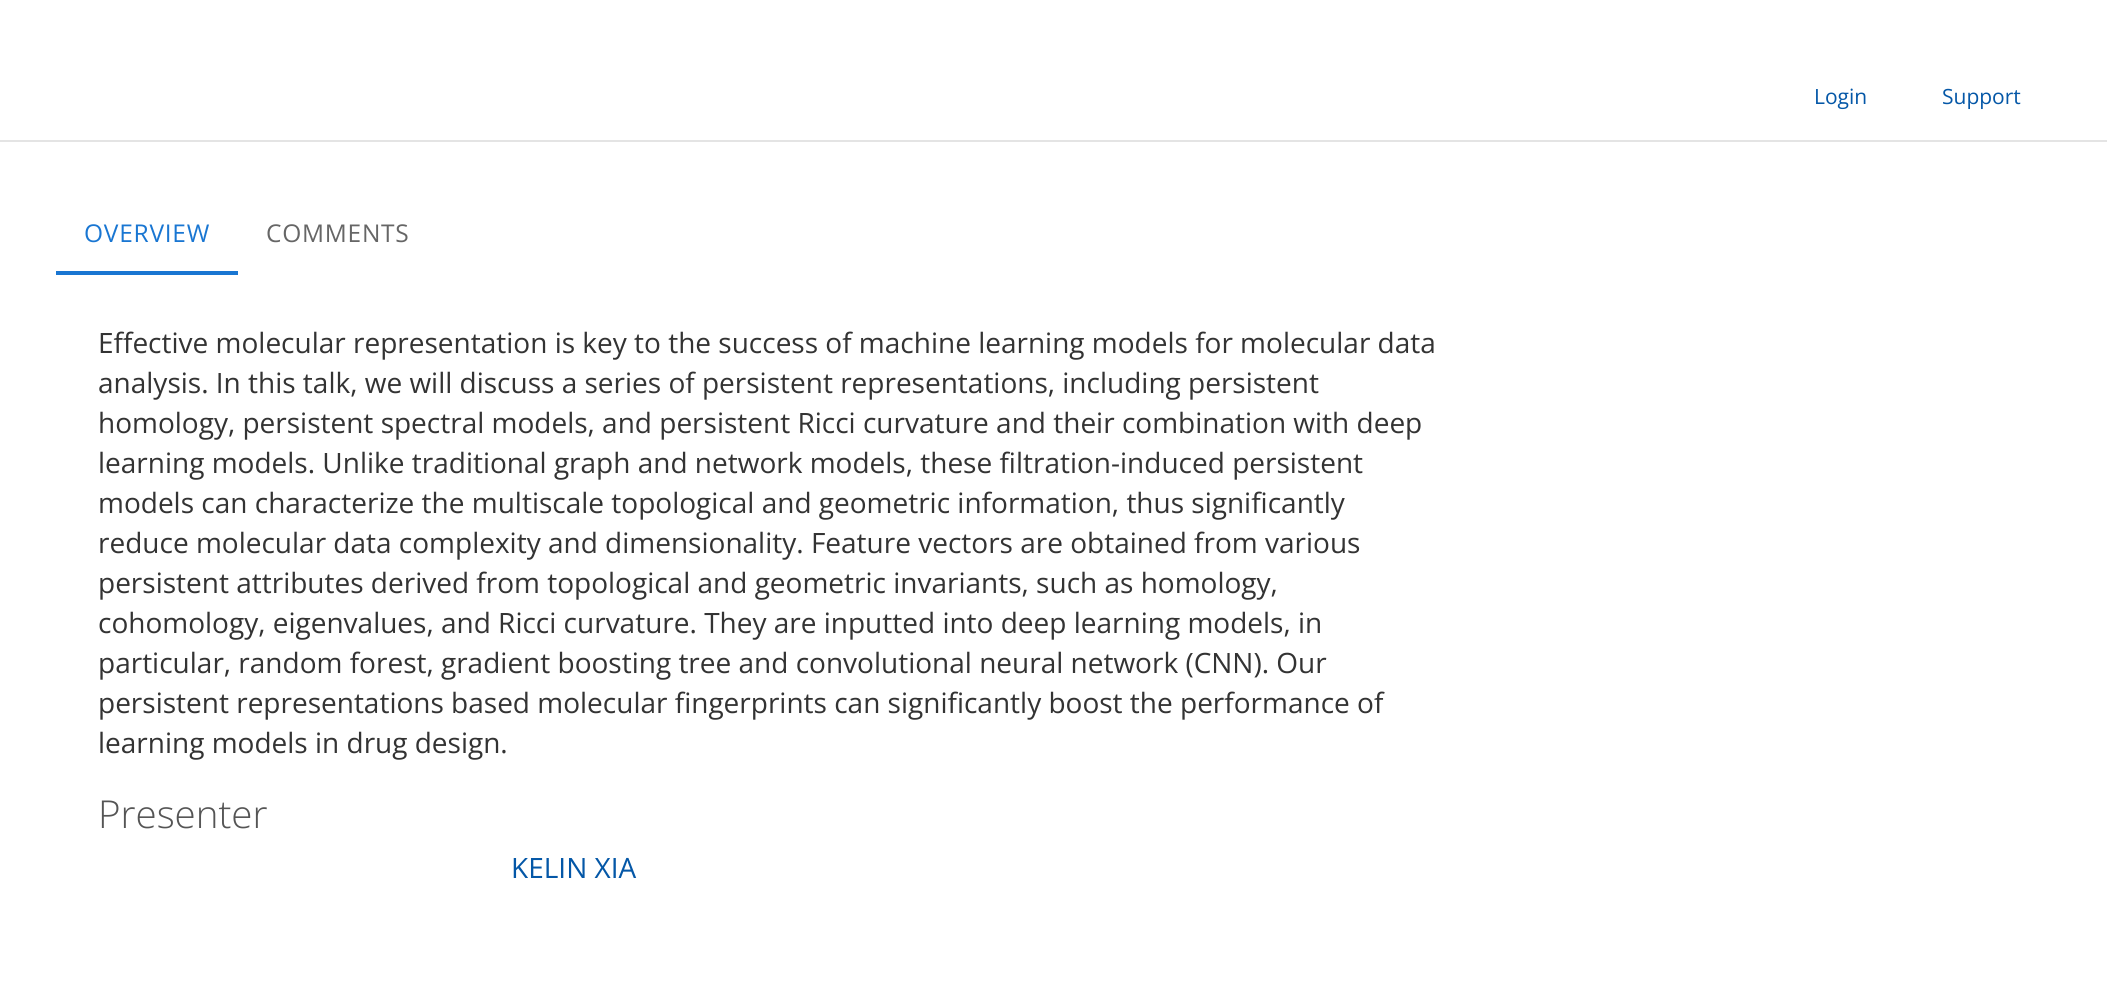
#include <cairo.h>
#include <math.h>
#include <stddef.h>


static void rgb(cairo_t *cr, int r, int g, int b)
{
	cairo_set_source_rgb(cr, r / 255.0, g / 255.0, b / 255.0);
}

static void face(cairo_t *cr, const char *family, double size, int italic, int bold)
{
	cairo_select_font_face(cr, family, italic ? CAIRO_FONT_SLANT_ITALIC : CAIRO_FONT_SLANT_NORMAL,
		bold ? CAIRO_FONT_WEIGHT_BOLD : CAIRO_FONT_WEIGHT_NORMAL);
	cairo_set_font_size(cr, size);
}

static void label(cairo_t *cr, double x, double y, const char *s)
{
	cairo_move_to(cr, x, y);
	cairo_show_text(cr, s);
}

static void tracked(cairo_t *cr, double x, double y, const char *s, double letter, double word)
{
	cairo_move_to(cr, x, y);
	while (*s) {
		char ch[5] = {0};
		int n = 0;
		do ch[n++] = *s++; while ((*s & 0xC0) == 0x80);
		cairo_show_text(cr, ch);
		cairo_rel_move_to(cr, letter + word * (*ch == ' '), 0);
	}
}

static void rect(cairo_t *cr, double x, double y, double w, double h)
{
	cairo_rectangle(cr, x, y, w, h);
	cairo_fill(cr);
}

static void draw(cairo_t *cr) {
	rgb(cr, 255, 255, 255);
	cairo_paint(cr);
	rgb(cr, 228, 228, 228);
	rect(cr, 0, 140, 2107, 2);
	face(cr, "Open Sans", 21, 0, 0);
	rgb(cr, 4, 87, 167);
	label(cr, 1814, 104, "Login");
	label(cr, 1942, 104, "Support");
	face(cr, "Open Sans", 24.5, 0, 0);
	rgb(cr, 25, 118, 210);
	tracked(cr, 84, 242, "OVERVIEW", 0.75, 0);
	rgb(cr, 102, 102, 102);
	tracked(cr, 266, 242, "COMMENTS", 0.75, 0);
	rgb(cr, 25, 118, 210);
	rect(cr, 56, 271, 182, 4);
	face(cr, "Open Sans", 28, 0, 0);
	rgb(cr, 51, 51, 51);
	label(cr, 98, 353, "Effective molecular representation is key to the success of machine learning models for molecular data");
	label(cr, 98, 393, "analysis. In this talk, we will discuss a series of persistent representations, including persistent");
	label(cr, 98, 433, "homology, persistent spectral models, and persistent Ricci curvature and their combination with deep");
	label(cr, 98, 473, "learning models. Unlike traditional graph and network models, these filtration-induced persistent");
	label(cr, 98, 513, "models can characterize the multiscale topological and geometric information, thus significantly");
	label(cr, 98, 553, "reduce molecular data complexity and dimensionality. Feature vectors are obtained from various");
	label(cr, 98, 593, "persistent attributes derived from topological and geometric invariants, such as homology,");
	label(cr, 98, 633, "cohomology, eigenvalues, and Ricci curvature. They are inputted into deep learning models, in");
	label(cr, 98, 673, "particular, random forest, gradient boosting tree and convolutional neural network (CNN). Our");
	label(cr, 98, 713, "persistent representations based molecular fingerprints can significantly boost the performance of");
	label(cr, 98, 753, "learning models in drug design.");
	face(cr, "Open Sans Light", 38.5, 0, 0);
	rgb(cr, 85, 85, 85);
	label(cr, 98, 828, "Presenter");
	face(cr, "Open Sans", 28, 0, 0);
	rgb(cr, 4, 87, 167);
	label(cr, 511, 878, "KELIN XIA");
}

int main(void) {
	cairo_surface_t *surface = cairo_image_surface_create(CAIRO_FORMAT_RGB24, 2107, 1000);
	cairo_t *cr = cairo_create(surface);
	cairo_font_options_t *options = cairo_font_options_create();
	cairo_font_options_set_hint_metrics(options, CAIRO_HINT_METRICS_OFF);
	cairo_font_options_set_hint_style(options, CAIRO_HINT_STYLE_NONE);
	cairo_set_font_options(cr, options);
	cairo_set_miter_limit(cr, 4);
	draw(cr);
	cairo_surface_write_to_png(surface, "render.png");
	cairo_font_options_destroy(options);
	cairo_destroy(cr);
	cairo_surface_destroy(surface);
	return 0;
}
